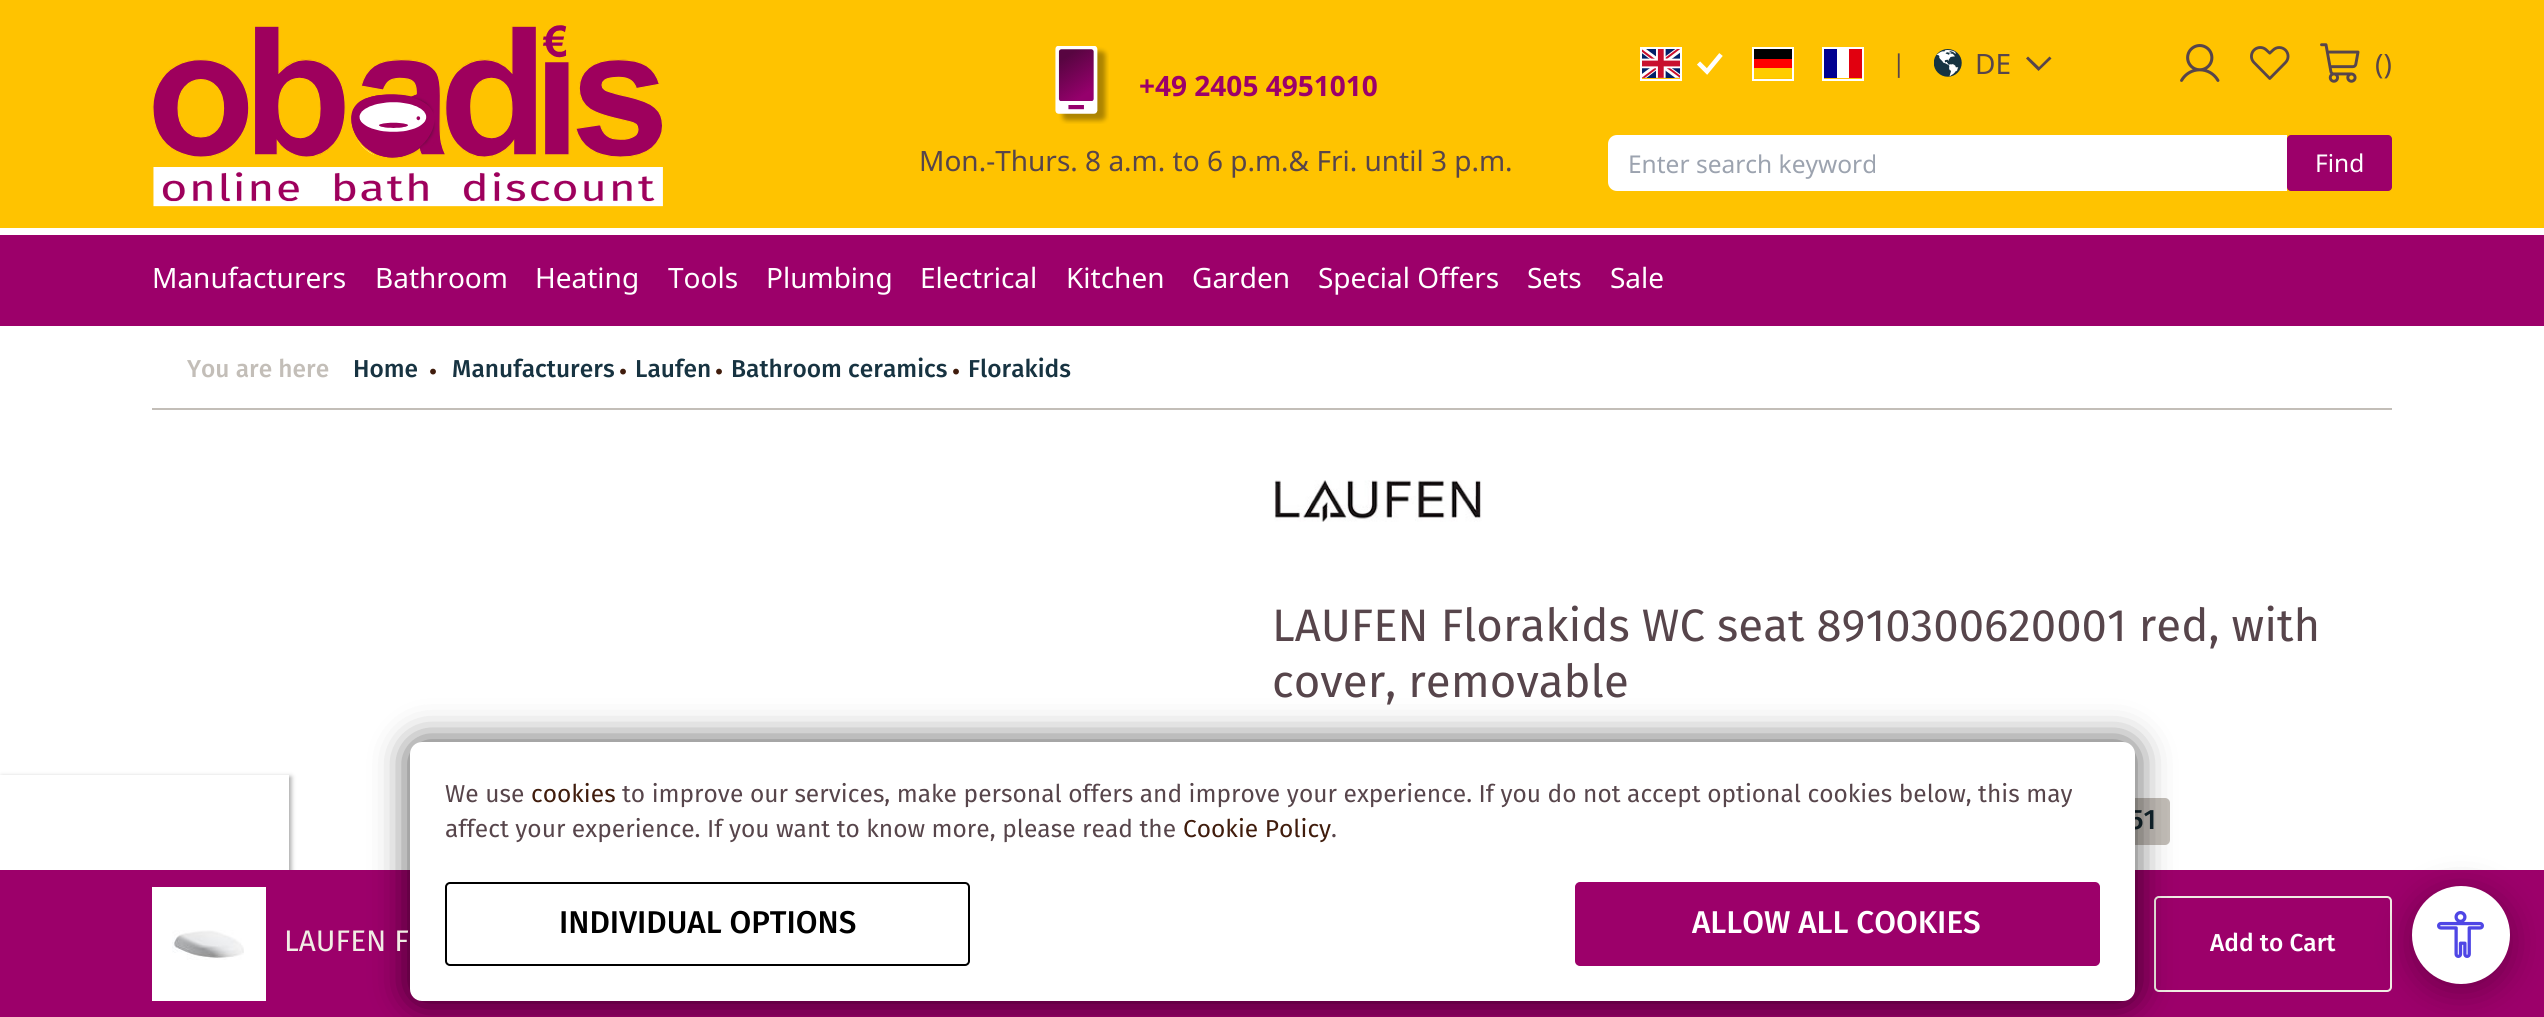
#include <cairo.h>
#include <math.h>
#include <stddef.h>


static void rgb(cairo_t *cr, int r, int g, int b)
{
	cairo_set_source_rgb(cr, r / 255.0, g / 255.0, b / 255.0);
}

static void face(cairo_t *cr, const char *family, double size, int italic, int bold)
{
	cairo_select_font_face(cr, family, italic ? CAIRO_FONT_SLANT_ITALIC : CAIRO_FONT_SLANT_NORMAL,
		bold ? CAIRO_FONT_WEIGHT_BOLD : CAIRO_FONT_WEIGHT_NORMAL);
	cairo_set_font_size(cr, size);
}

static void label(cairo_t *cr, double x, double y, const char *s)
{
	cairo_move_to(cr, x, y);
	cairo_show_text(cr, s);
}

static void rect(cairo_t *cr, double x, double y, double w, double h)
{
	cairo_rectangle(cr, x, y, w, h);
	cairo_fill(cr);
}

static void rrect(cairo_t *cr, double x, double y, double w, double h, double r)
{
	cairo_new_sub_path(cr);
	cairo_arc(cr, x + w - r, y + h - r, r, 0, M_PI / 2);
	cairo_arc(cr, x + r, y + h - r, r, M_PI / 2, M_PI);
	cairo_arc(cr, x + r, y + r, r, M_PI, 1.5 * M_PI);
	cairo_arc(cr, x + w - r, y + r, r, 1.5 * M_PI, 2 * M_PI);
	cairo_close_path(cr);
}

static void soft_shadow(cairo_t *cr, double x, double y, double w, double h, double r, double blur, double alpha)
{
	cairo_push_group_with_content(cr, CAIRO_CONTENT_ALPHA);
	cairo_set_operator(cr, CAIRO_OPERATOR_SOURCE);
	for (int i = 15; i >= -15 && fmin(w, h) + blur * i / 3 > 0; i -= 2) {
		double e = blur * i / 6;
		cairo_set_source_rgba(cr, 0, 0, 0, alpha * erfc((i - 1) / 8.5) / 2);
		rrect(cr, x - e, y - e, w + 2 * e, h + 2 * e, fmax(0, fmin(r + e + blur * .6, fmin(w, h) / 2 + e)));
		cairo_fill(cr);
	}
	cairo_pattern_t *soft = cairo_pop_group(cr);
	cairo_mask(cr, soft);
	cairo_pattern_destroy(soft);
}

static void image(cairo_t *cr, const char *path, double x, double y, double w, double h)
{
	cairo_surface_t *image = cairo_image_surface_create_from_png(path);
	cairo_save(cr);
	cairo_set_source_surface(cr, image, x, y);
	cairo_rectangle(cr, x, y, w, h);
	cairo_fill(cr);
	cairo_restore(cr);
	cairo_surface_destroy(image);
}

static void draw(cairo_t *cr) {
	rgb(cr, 255, 255, 255);
	cairo_paint(cr);
	rgb(cr, 255, 195, 0);
	rect(cr, 0, 0, 2544, 228);
	image(cr, "image0.png", 152, 25, 511, 182);
	cairo_rectangle(cr, 1641, 48, 40, 32);
	rgb(cr, 255, 255, 255);
	cairo_stroke(cr);
	image(cr, "image1.png", 1642, 49, 38, 29);
	cairo_new_path(cr);
	cairo_move_to(cr, 1698.5, 63);
	cairo_line_to(cr, 1707, 71.5);
	cairo_line_to(cr, 1721, 54.5);
	cairo_set_line_width(cr, 4.5);
	cairo_stroke(cr);
	cairo_rectangle(cr, 1753, 48, 40, 32);
	cairo_set_line_width(cr, 2);
	cairo_stroke(cr);
	rgb(cr, 255, 204, 0);
	rect(cr, 1754, 68, 38, 10);
	rgb(cr, 0, 0, 1);
	rect(cr, 1754, 49, 38, 10);
	rgb(cr, 255, 0, 0);
	rect(cr, 1754, 59, 38, 9);
	cairo_rectangle(cr, 1823, 48, 40, 32);
	rgb(cr, 255, 255, 255);
	cairo_stroke(cr);
	rect(cr, 1837, 49, 12, 29);
	rgb(cr, 0, 0, 145);
	rect(cr, 1824, 49, 13, 29);
	rgb(cr, 225, 0, 15);
	rect(cr, 1849, 49, 13, 29);
	face(cr, "Noto Sans", 24.5, 0, 0);
	rgb(cr, 87, 69, 75);
	label(cr, 1892, 72, "|");
	image(cr, "image2.png", 1934, 49, 28, 28);
	face(cr, "Noto Sans", 28, 0, 0);
	label(cr, 1975, 74, "DE");
	cairo_new_path(cr);
	cairo_move_to(cr, 2028, 56.5);
	cairo_line_to(cr, 2026, 58.5);
	cairo_line_to(cr, 2038.5, 71);
	cairo_line_to(cr, 2051.5, 58.5);
	cairo_line_to(cr, 2049.5, 56.5);
	cairo_line_to(cr, 2039, 67);
	cairo_close_path(cr);
	cairo_fill(cr);
	image(cr, "image3.png", 2180, 44, 40, 38);
	image(cr, "image4.png", 2250, 46, 40, 34);
	image(cr, "image5.png", 2320, 43, 40, 40);
	label(cr, 2375, 74, "()");
	image(cr, "image6.png", 1055, 46, 54, 78);
	face(cr, "Noto Sans", 28, 0, 1);
	rgb(cr, 156, 0, 106);
	label(cr, 1139, 96, "+49 2405 4951010");
	face(cr, "Noto Sans", 28, 0, 0);
	rgb(cr, 87, 69, 75);
	label(cr, 919, 171, "Mon.-Thurs. 8 a.m. to 6 p.m.& Fri. until 3 p.m.");
	rgb(cr, 255, 255, 255);
	cairo_new_path(cr);
	cairo_move_to(cr, 1617, 136);
	cairo_line_to(cr, 2286, 136);
	cairo_line_to(cr, 2286, 190);
	cairo_line_to(cr, 1617, 190);
	cairo_curve_to(cr, 1612.5, 190, 1609, 186.5, 1609, 182);
	cairo_line_to(cr, 1609, 144);
	cairo_curve_to(cr, 1609, 139.5, 1612.5, 136, 1617, 136);
	cairo_close_path(cr);
	cairo_fill_preserve(cr);
	cairo_stroke(cr);
	face(cr, "Noto Sans", 24.5, 0, 0);
	rgb(cr, 156, 163, 175);
	label(cr, 1628, 173, "Enter search keyword");
	rgb(cr, 156, 0, 106);
	rrect(cr, 2287, 135, 105, 56, 4);
	cairo_fill(cr);
	rgb(cr, 255, 255, 255);
	label(cr, 2315, 172, "Find");
	rgb(cr, 156, 0, 106);
	rect(cr, 0, 235, 2544, 91);
	face(cr, "Noto Sans", 28, 0, 0);
	rgb(cr, 255, 255, 255);
	label(cr, 152, 288, "Manufacturers");
	label(cr, 375, 288, "Bathroom");
	label(cr, 535, 288, "Heating");
	label(cr, 668, 288, "Tools");
	label(cr, 766, 288, "Plumbing");
	label(cr, 920, 288, "Electrical");
	label(cr, 1066, 288, "Kitchen");
	label(cr, 1192, 288, "Garden");
	label(cr, 1318, 288, "Special Offers");
	label(cr, 1527, 288, "Sets");
	label(cr, 1610, 288, "Sale");
	rgb(cr, 195, 190, 184);
	rect(cr, 152, 408, 2240, 2);
	face(cr, "Fira Sans Medium", 24.5, 0, 0);
	label(cr, 187, 377, "You are here");
	rgb(cr, 23, 51, 65);
	label(cr, 353, 377, "Home");
	face(cr, "Fira Sans", 42, 0, 0);
	rgb(cr, 64, 28, 12);
	label(cr, 428, 374, ".");
	face(cr, "Fira Sans Medium", 24.5, 0, 0);
	rgb(cr, 23, 51, 65);
	label(cr, 452, 377, "Manufacturers");
	face(cr, "Fira Sans", 42, 0, 0);
	rgb(cr, 64, 28, 12);
	label(cr, 618, 374, ".");
	face(cr, "Fira Sans Medium", 24.5, 0, 0);
	rgb(cr, 23, 51, 65);
	label(cr, 635, 377, "Laufen");
	face(cr, "Fira Sans", 42, 0, 0);
	rgb(cr, 64, 28, 12);
	label(cr, 714, 374, ".");
	face(cr, "Fira Sans Medium", 24.5, 0, 0);
	rgb(cr, 23, 51, 65);
	label(cr, 731, 377, "Bathroom ceramics");
	face(cr, "Fira Sans", 42, 0, 0);
	rgb(cr, 64, 28, 12);
	label(cr, 951, 374, ".");
	face(cr, "Fira Sans Medium", 24.5, 0, 0);
	rgb(cr, 23, 51, 65);
	label(cr, 968, 377, "Florakids");
	cairo_save(cr);
	cairo_set_fill_rule(cr, CAIRO_FILL_RULE_EVEN_ODD);
	cairo_new_path(cr);
	cairo_move_to(cr, 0, 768);
	cairo_line_to(cr, 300, 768);
	cairo_line_to(cr, 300, 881);
	cairo_line_to(cr, 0, 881);
	cairo_close_path(cr);
	cairo_move_to(cr, 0, 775);
	cairo_line_to(cr, 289, 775);
	cairo_line_to(cr, 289, 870);
	cairo_line_to(cr, 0, 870);
	cairo_close_path(cr);
	cairo_clip(cr);
	rgb(cr, 162, 162, 162);
	soft_shadow(cr, 2, 777, 289, 95, 0, 2.5, 1);
	cairo_restore(cr);
	image(cr, "image7.png", 1274, 480, 208, 42);
	face(cr, "Fira Sans", 45.5, 0, 0);
	rgb(cr, 87, 69, 75);
	label(cr, 1272, 641, "LAUFEN Florakids WC seat 8910300620001 red, with");
	label(cr, 1272, 697, "cover, removable");
	rgb(cr, 195, 190, 184);
	rrect(cr, 1887, 798, 283, 47, 5);
	cairo_fill(cr);
	face(cr, "Fira Sans Medium", 28, 0, 0);
	rgb(cr, 17, 36, 45);
	label(cr, 2129, 829, "51");
	image(cr, "image8.png", 368, 821, 42, 49);
	rgb(cr, 156, 0, 106);
	rect(cr, 0, 870, 2544, 147);
	rrect(cr, 2155, 897, 236, 94, 4);
	rgb(cr, 241, 237, 228);
	cairo_stroke(cr);
	rgb(cr, 1, 1, 1);
	soft_shadow(cr, 410, 742, 1725, 259, 12, 17.5, 0.7);
	rgb(cr, 255, 255, 255);
	rrect(cr, 410, 742, 1725, 259, 12);
	cairo_fill(cr);
	face(cr, "Fira Sans", 24.5, 0, 0);
	rgb(cr, 87, 69, 75);
	label(cr, 445, 802, "We use");
	rgb(cr, 64, 28, 12);
	label(cr, 531, 802, "cookies");
	rgb(cr, 87, 69, 75);
	label(cr, 622, 802, "to improve our services, make personal offers and improve your experience. If you do not accept optional cookies below, this may");
	label(cr, 445, 837, "affect your experience. If you want to know more, please read the");
	rgb(cr, 64, 28, 12);
	label(cr, 1183, 837, "Cookie Policy");
	rgb(cr, 87, 69, 75);
	label(cr, 1331, 837, ".");
	rrect(cr, 446, 883, 523, 82, 4);
	rgb(cr, 0, 0, 0);
	cairo_stroke(cr);
	face(cr, "Fira Sans Medium", 31.5, 0, 0);
	label(cr, 559, 933, "INDIVIDUAL OPTIONS");
	rgb(cr, 156, 0, 106);
	rrect(cr, 1576, 883, 523, 82, 4);
	cairo_fill_preserve(cr);
	cairo_stroke(cr);
	rgb(cr, 255, 255, 255);
	label(cr, 1692, 933, "ALLOW ALL COOKIES");
	rgb(cr, 0, 0, 0);
	soft_shadow(cr, 2412, 893, 98, 98, 49, 17.5, 0.3);
	rgb(cr, 255, 255, 255);
	cairo_arc(cr, 2461, 935, 49, 0, 2 * M_PI);
	cairo_fill(cr);
	image(cr, "image9.png", 2437, 911, 47, 47);
	rect(cr, 152, 887, 114, 114);
	image(cr, "image10.png", 172, 930, 72, 30);
	face(cr, "Fira Sans", 29.75, 0, 0);
	rgb(cr, 241, 237, 228);
	label(cr, 284, 951, "LAUFEN F");
	face(cr, "Fira Sans Medium", 24.5, 0, 0);
	rgb(cr, 255, 255, 255);
	label(cr, 2210, 951, "Add to Cart");
}

int main(void) {
	cairo_surface_t *surface = cairo_image_surface_create(CAIRO_FORMAT_RGB24, 2544, 1017);
	cairo_t *cr = cairo_create(surface);
	cairo_font_options_t *options = cairo_font_options_create();
	cairo_font_options_set_hint_metrics(options, CAIRO_HINT_METRICS_OFF);
	cairo_font_options_set_hint_style(options, CAIRO_HINT_STYLE_NONE);
	cairo_set_font_options(cr, options);
	cairo_set_miter_limit(cr, 4);
	draw(cr);
	cairo_surface_write_to_png(surface, "render.png");
	cairo_font_options_destroy(options);
	cairo_destroy(cr);
	cairo_surface_destroy(surface);
	return 0;
}
